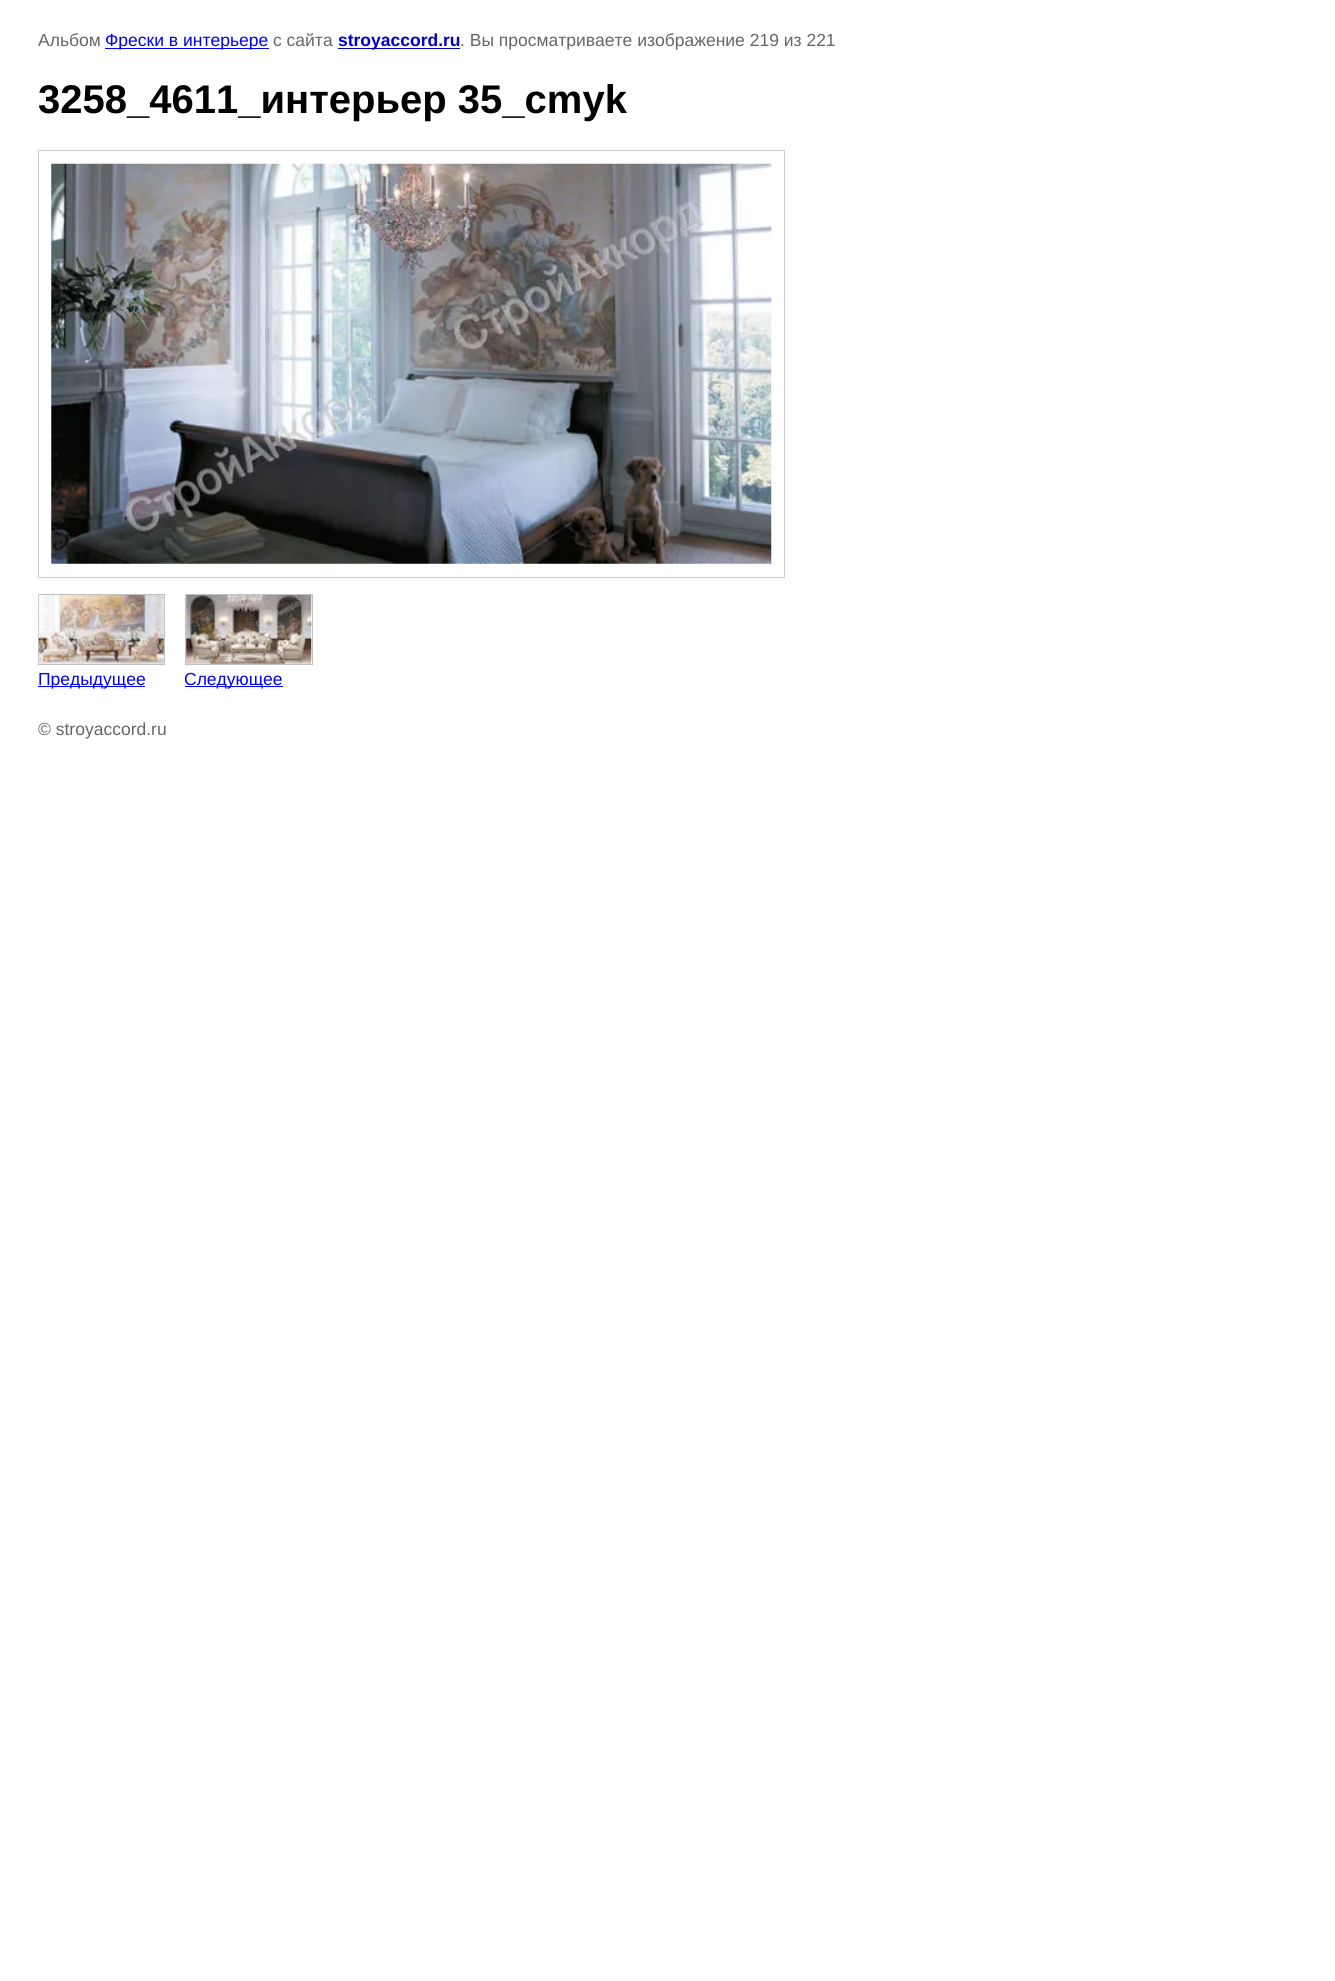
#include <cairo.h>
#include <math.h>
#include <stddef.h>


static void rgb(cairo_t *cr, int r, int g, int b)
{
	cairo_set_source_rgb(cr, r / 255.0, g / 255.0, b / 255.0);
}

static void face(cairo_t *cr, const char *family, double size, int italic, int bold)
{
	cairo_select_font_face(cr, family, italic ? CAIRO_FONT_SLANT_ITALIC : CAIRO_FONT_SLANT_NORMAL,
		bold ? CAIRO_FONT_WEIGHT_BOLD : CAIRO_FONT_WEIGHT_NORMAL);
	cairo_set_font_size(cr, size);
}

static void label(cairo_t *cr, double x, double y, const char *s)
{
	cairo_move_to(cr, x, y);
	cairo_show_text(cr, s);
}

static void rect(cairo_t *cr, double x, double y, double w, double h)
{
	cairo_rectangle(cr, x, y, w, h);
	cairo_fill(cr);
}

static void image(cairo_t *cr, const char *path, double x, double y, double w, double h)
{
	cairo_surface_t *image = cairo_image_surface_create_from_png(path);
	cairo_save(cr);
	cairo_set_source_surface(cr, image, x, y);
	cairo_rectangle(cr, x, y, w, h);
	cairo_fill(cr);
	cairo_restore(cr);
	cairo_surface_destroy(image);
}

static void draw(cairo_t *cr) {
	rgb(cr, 255, 255, 255);
	cairo_paint(cr);
	face(cr, "Liberation Sans", 17.5, 0, 0);
	rgb(cr, 102, 102, 102);
	label(cr, 38, 46, "Альбом");
	rgb(cr, 0, 0, 255);
	rect(cr, 105, 48, 164, 1);
	label(cr, 105, 46, "Фрески в интерьере");
	rgb(cr, 102, 102, 102);
	label(cr, 273, 46, "с сайта");
	rgb(cr, 0, 0, 204);
	rect(cr, 338, 48, 122, 1);
	face(cr, "Liberation Sans", 17.5, 0, 1);
	label(cr, 338, 46, "stroyaccord.ru");
	face(cr, "Liberation Sans", 17.5, 0, 0);
	rgb(cr, 102, 102, 102);
	label(cr, 460, 46, ". Вы просматриваете изображение 219 из 221");
	face(cr, "Liberation Sans", 40, 0, 1);
	rgb(cr, 0, 0, 0);
	label(cr, 38, 113, "3258_4611_интерьер 35_cmyk");
	cairo_rectangle(cr, 38.5, 150.5, 746, 427);
	rgb(cr, 204, 204, 204);
	cairo_set_line_width(cr, 1);
	cairo_stroke(cr);
	image(cr, "image0.png", 51, 163, 721, 401);
	cairo_rectangle(cr, 38.5, 594.5, 126, 70);
	rgb(cr, 192, 192, 192);
	cairo_stroke(cr);
	image(cr, "image1.png", 38, 595, 126, 69);
	rgb(cr, 0, 0, 255);
	rect(cr, 38, 686, 107, 1);
	face(cr, "Liberation Sans", 17.5, 0, 0);
	label(cr, 38, 685, "Предыдущее");
	cairo_rectangle(cr, 185.5, 594.5, 127, 70);
	rgb(cr, 192, 192, 192);
	cairo_stroke(cr);
	image(cr, "image2.png", 186, 595, 126, 69);
	rgb(cr, 0, 0, 255);
	rect(cr, 185, 686, 98, 1);
	label(cr, 184, 685, "Следующее");
	rgb(cr, 102, 102, 102);
	label(cr, 38, 735, "© stroyaccord.ru");
}

int main(void) {
	cairo_surface_t *surface = cairo_image_surface_create(CAIRO_FORMAT_RGB24, 1335, 1981);
	cairo_t *cr = cairo_create(surface);
	cairo_font_options_t *options = cairo_font_options_create();
	cairo_font_options_set_hint_metrics(options, CAIRO_HINT_METRICS_OFF);
	cairo_font_options_set_hint_style(options, CAIRO_HINT_STYLE_NONE);
	cairo_set_font_options(cr, options);
	cairo_set_miter_limit(cr, 4);
	draw(cr);
	cairo_surface_write_to_png(surface, "render.png");
	cairo_font_options_destroy(options);
	cairo_destroy(cr);
	cairo_surface_destroy(surface);
	return 0;
}
